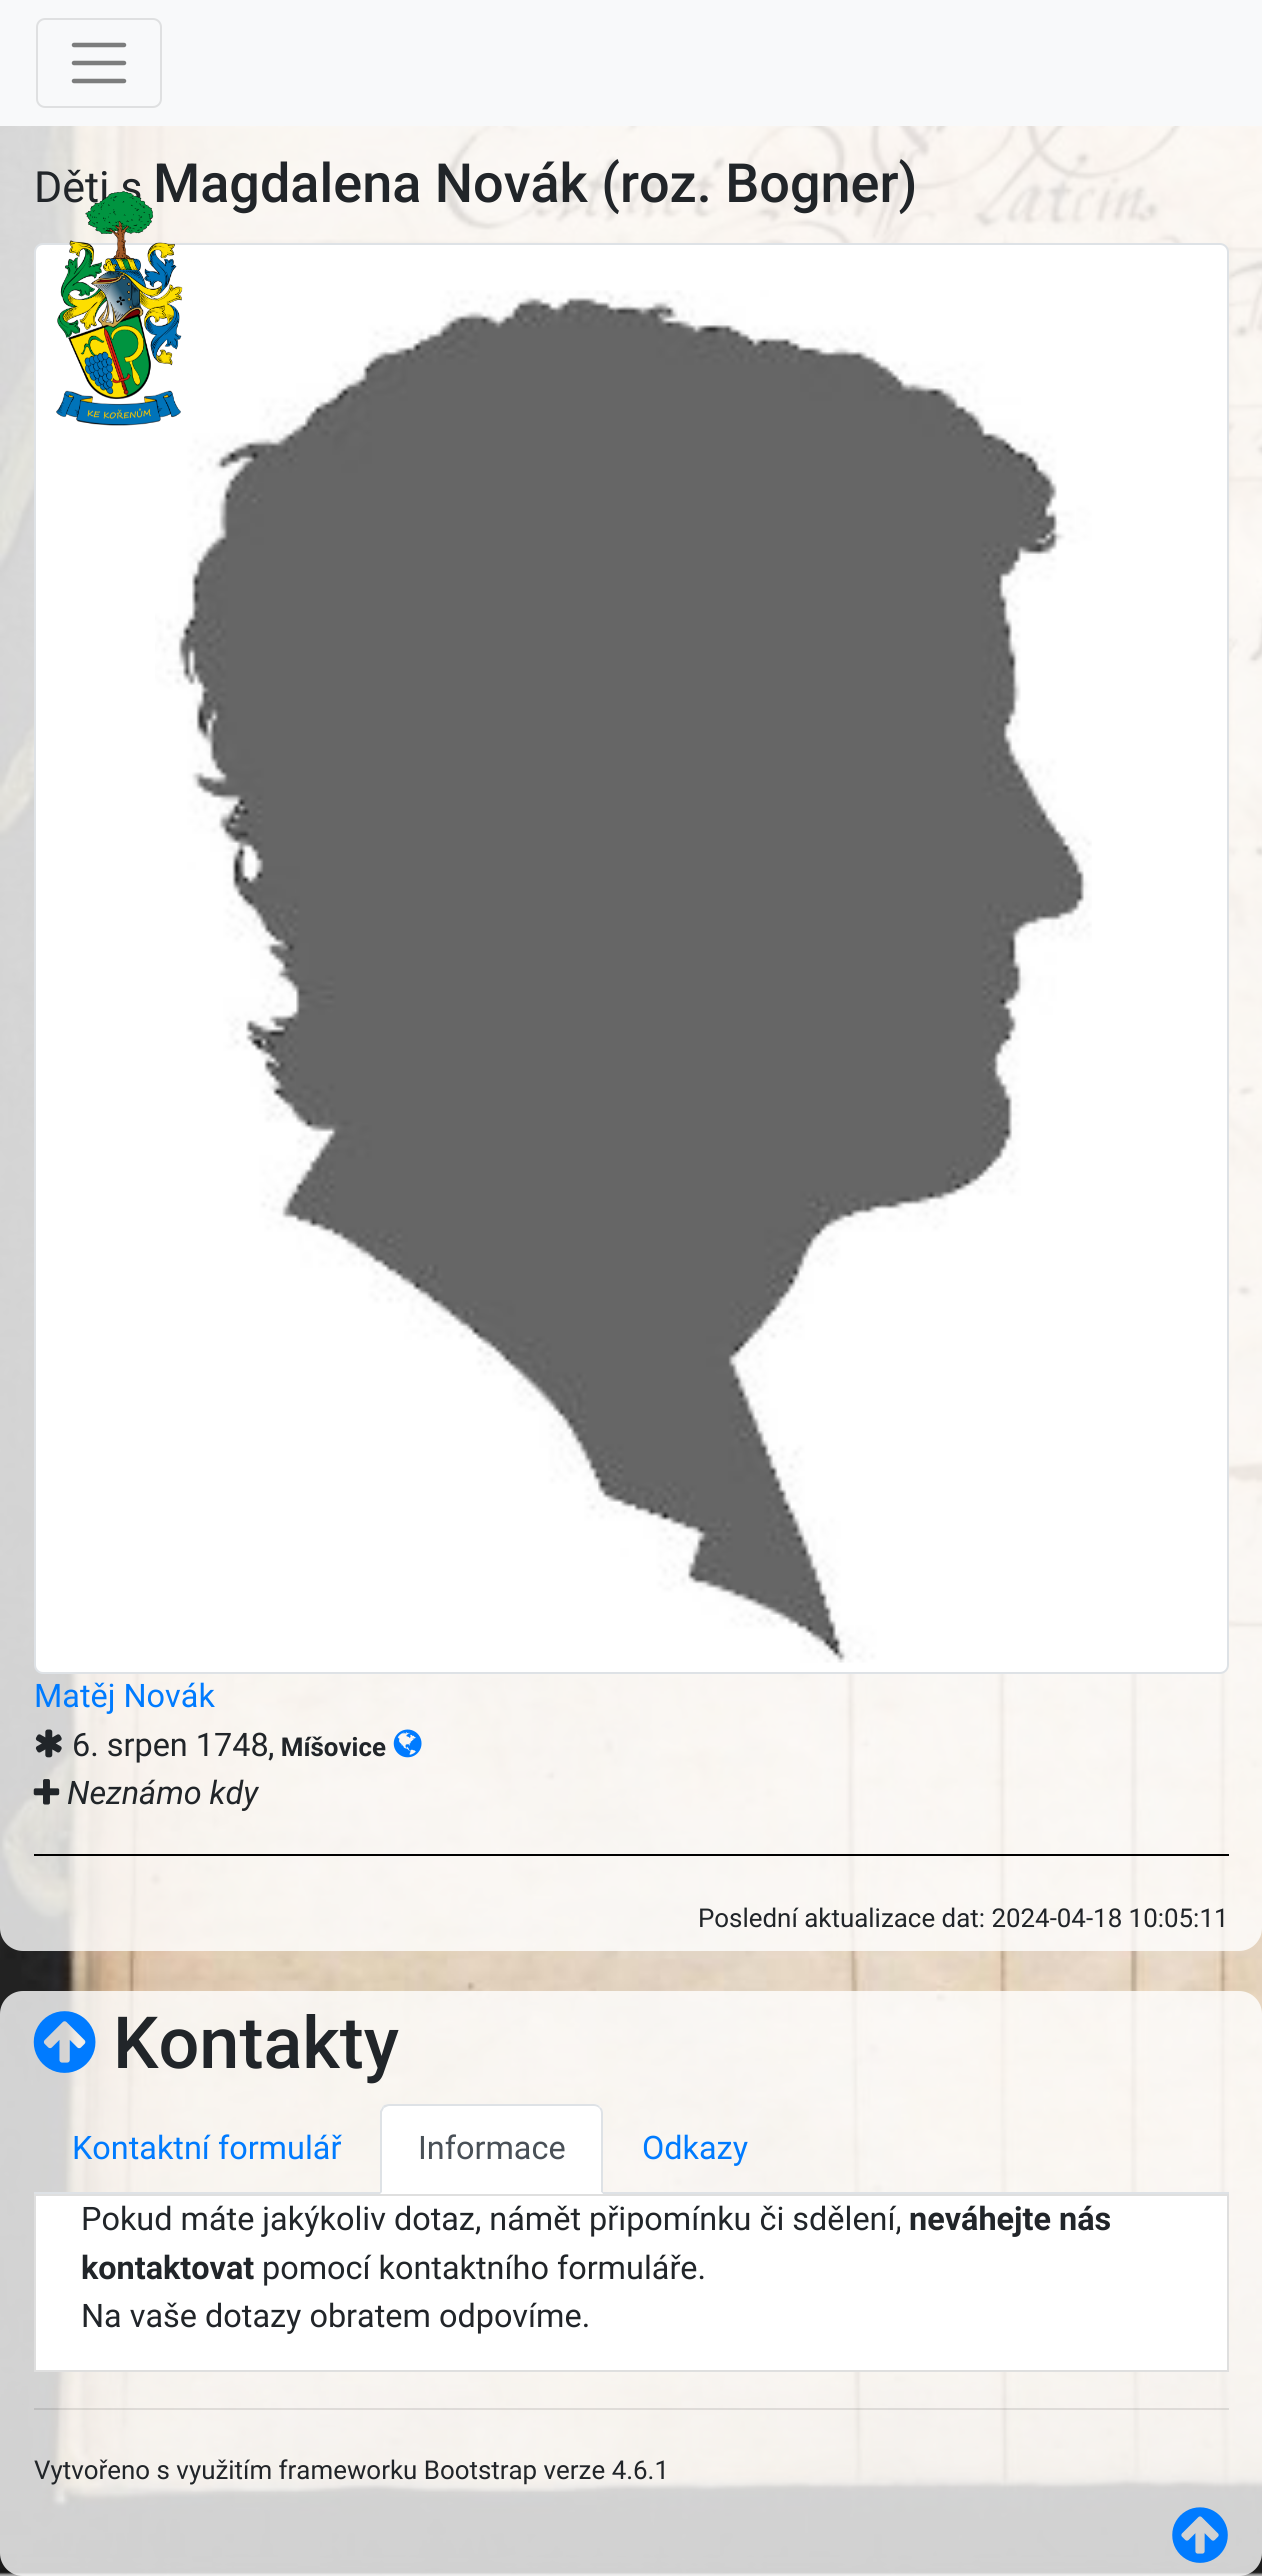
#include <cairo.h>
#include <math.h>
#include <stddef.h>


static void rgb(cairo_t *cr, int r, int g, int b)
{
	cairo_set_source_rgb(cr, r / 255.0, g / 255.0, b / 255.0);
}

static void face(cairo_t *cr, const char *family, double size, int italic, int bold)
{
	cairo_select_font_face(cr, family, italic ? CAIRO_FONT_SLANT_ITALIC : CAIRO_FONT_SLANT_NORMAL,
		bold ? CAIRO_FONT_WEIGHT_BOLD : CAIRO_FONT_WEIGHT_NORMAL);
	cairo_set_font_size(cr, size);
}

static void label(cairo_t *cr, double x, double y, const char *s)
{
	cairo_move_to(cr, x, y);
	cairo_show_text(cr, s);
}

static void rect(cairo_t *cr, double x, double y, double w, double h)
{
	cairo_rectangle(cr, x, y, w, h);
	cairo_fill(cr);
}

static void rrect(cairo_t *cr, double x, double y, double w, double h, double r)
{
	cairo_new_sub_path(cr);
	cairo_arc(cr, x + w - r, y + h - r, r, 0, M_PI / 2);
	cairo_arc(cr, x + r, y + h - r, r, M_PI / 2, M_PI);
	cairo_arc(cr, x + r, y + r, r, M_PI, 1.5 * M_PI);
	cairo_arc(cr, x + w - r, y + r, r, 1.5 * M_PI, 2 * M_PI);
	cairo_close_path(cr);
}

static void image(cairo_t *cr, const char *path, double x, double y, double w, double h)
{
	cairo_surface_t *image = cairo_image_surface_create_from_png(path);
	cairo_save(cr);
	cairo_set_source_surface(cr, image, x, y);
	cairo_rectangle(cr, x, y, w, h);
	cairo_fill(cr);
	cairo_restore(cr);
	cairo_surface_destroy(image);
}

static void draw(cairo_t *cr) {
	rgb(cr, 255, 255, 255);
	cairo_paint(cr);
	image(cr, "image0.png", 0, 126, 1262, 2450);
	cairo_set_source_rgba(cr, 1, 1, 1, 0.8);
	rrect(cr, 0, -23, 1262, 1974, 23);
	cairo_fill(cr);
	rgb(cr, 248, 249, 250);
	rect(cr, 0, 0, 1262, 126);
	rrect(cr, 37, 19, 124, 88, 8);
	rgb(cr, 223, 224, 225);
	cairo_stroke(cr);
	cairo_new_path(cr);
	cairo_move_to(cr, 74, 45);
	cairo_line_to(cr, 124, 45);
	cairo_move_to(cr, 74, 63);
	cairo_line_to(cr, 124, 63);
	cairo_move_to(cr, 74, 81);
	cairo_line_to(cr, 124, 81);
	rgb(cr, 124, 125, 125);
	cairo_set_line_width(cr, 4.5);
	cairo_set_line_cap(cr, CAIRO_LINE_CAP_ROUND);
	cairo_stroke(cr);
	face(cr, "Roboto", 43, 0, 0);
	rgb(cr, 33, 37, 41);
	label(cr, 34, 202, "Děti s");
	face(cr, "Roboto Medium", 54, 0, 0);
	label(cr, 153, 202, "Magdalena Novák (roz. Bogner)");
	rgb(cr, 255, 255, 255);
	rrect(cr, 35, 244, 1193, 1429, 8);
	cairo_fill_preserve(cr);
	rgb(cr, 222, 226, 230);
	cairo_set_line_width(cr, 2);
	cairo_set_line_cap(cr, CAIRO_LINE_CAP_BUTT);
	cairo_stroke(cr);
	image(cr, "image1.png", 155, 290, 937, 1373);
	face(cr, "Roboto", 32.4, 0, 0);
	rgb(cr, 0, 123, 255);
	label(cr, 34, 1707, "Matěj Novák");
	image(cr, "image2.png", 35, 1729, 27, 29);
	rgb(cr, 33, 37, 41);
	label(cr, 72, 1756, "6. srpen 1748");
	face(cr, "Roboto", 25.9, 0, 1);
	label(cr, 268, 1756, ", Míšovice");
	image(cr, "image3.png", 393, 1729, 29, 29);
	image(cr, "image4.png", 33, 1779, 27, 26);
	face(cr, "Roboto", 32.4, 1, 0);
	label(cr, 67, 1804, "Neznámo kdy");
	rgb(cr, 0, 0, 0);
	rect(cr, 34, 1854, 1195, 2);
	face(cr, "Roboto", 25.9, 0, 0);
	rgb(cr, 33, 37, 41);
	label(cr, 698, 1927, "Poslední aktualizace dat: 2024-04-18 10:05:11");
	image(cr, "image5.png", 56, 191, 127, 235);
	cairo_set_source_rgba(cr, 1, 1, 1, 0.8);
	rrect(cr, 0, 1991, 1262, 585, 23);
	cairo_fill(cr);
	image(cr, "image6.png", 33, 2011, 63, 62);
	face(cr, "Roboto Medium", 72, 0, 0);
	rgb(cr, 33, 37, 41);
	label(cr, 113, 2068, "Kontakty");
	rgb(cr, 222, 226, 230);
	rect(cr, 34, 2192, 1195, 2);
	face(cr, "Roboto", 32.4, 0, 0);
	rgb(cr, 0, 123, 255);
	label(cr, 72, 2159, "Kontaktní formulář");
	rgb(cr, 255, 255, 255);
	cairo_new_path(cr);
	cairo_move_to(cr, 389, 2104);
	cairo_line_to(cr, 594, 2104);
	cairo_curve_to(cr, 599, 2104, 603, 2108, 603, 2113);
	cairo_line_to(cr, 603, 2194);
	cairo_line_to(cr, 380, 2194);
	cairo_line_to(cr, 380, 2113);
	cairo_curve_to(cr, 380, 2108, 384, 2104, 389, 2104);
	cairo_close_path(cr);
	cairo_fill(cr);
	rgb(cr, 222, 226, 230);
	cairo_new_path(cr);
	cairo_move_to(cr, 389, 2104);
	cairo_curve_to(cr, 387, 2104, 384, 2105, 383, 2106);
	cairo_line_to(cr, 384, 2108);
	cairo_curve_to(cr, 386, 2107, 388, 2106, 389, 2106);
	cairo_line_to(cr, 594, 2106);
	cairo_curve_to(cr, 596, 2106, 598, 2107, 599, 2108);
	cairo_line_to(cr, 600, 2107);
	cairo_curve_to(cr, 599, 2105, 596, 2104, 594, 2104);
	cairo_close_path(cr);
	cairo_fill(cr);
	cairo_new_path(cr);
	cairo_move_to(cr, 600, 2107);
	cairo_curve_to(cr, 602, 2108, 603, 2110, 603, 2113);
	cairo_line_to(cr, 603, 2194);
	cairo_line_to(cr, 601, 2192);
	cairo_line_to(cr, 601, 2113);
	cairo_curve_to(cr, 601, 2111, 600, 2109, 599, 2108);
	cairo_close_path(cr);
	cairo_fill(cr);
	rgb(cr, 255, 255, 255);
	cairo_new_path(cr);
	cairo_move_to(cr, 603, 2194);
	cairo_line_to(cr, 601, 2192);
	cairo_line_to(cr, 382, 2192);
	cairo_line_to(cr, 380, 2194);
	cairo_close_path(cr);
	cairo_fill(cr);
	rgb(cr, 222, 226, 230);
	cairo_new_path(cr);
	cairo_move_to(cr, 380, 2194);
	cairo_line_to(cr, 382, 2192);
	cairo_line_to(cr, 382, 2112);
	cairo_line_to(cr, 384, 2108);
	cairo_line_to(cr, 383, 2106);
	cairo_curve_to(cr, 382, 2108, 381, 2109, 380, 2111);
	cairo_close_path(cr);
	cairo_fill(cr);
	rgb(cr, 73, 80, 87);
	label(cr, 418, 2159, "Informace");
	rgb(cr, 0, 123, 255);
	label(cr, 642, 2159, "Odkazy");
	rgb(cr, 255, 255, 255);
	cairo_rectangle(cr, 35, 2195, 1193, 176);
	cairo_fill_preserve(cr);
	rgb(cr, 223, 223, 223);
	cairo_stroke(cr);
	rgb(cr, 33, 37, 41);
	label(cr, 81, 2230, "Pokud máte jakýkoliv dotaz, námět připomínku či sdělení,");
	face(cr, "Roboto", 32.4, 0, 1);
	label(cr, 909, 2230, "neváhejte nás");
	label(cr, 81, 2279, "kontaktovat");
	face(cr, "Roboto", 32.4, 0, 0);
	label(cr, 262, 2279, "pomocí kontaktního formuláře.");
	label(cr, 81, 2327, "Na vaše dotazy obratem odpovíme.");
	cairo_set_source_rgba(cr, 0, 0, 0, 0.1);
	rect(cr, 34, 2408, 1195, 2);
	face(cr, "Roboto", 25.9, 0, 0);
	rgb(cr, 33, 37, 41);
	label(cr, 34, 2479, "Vytvořeno s využitím frameworku Bootstrap verze 4.6.1");
	image(cr, "image7.png", 1172, 2507, 56, 56);
}

int main(void) {
	cairo_surface_t *surface = cairo_image_surface_create(CAIRO_FORMAT_RGB24, 1262, 2576);
	cairo_t *cr = cairo_create(surface);
	cairo_font_options_t *options = cairo_font_options_create();
	cairo_font_options_set_hint_metrics(options, CAIRO_HINT_METRICS_OFF);
	cairo_font_options_set_hint_style(options, CAIRO_HINT_STYLE_NONE);
	cairo_set_font_options(cr, options);
	cairo_set_miter_limit(cr, 4);
	draw(cr);
	cairo_surface_write_to_png(surface, "render.png");
	cairo_font_options_destroy(options);
	cairo_destroy(cr);
	cairo_surface_destroy(surface);
	return 0;
}
